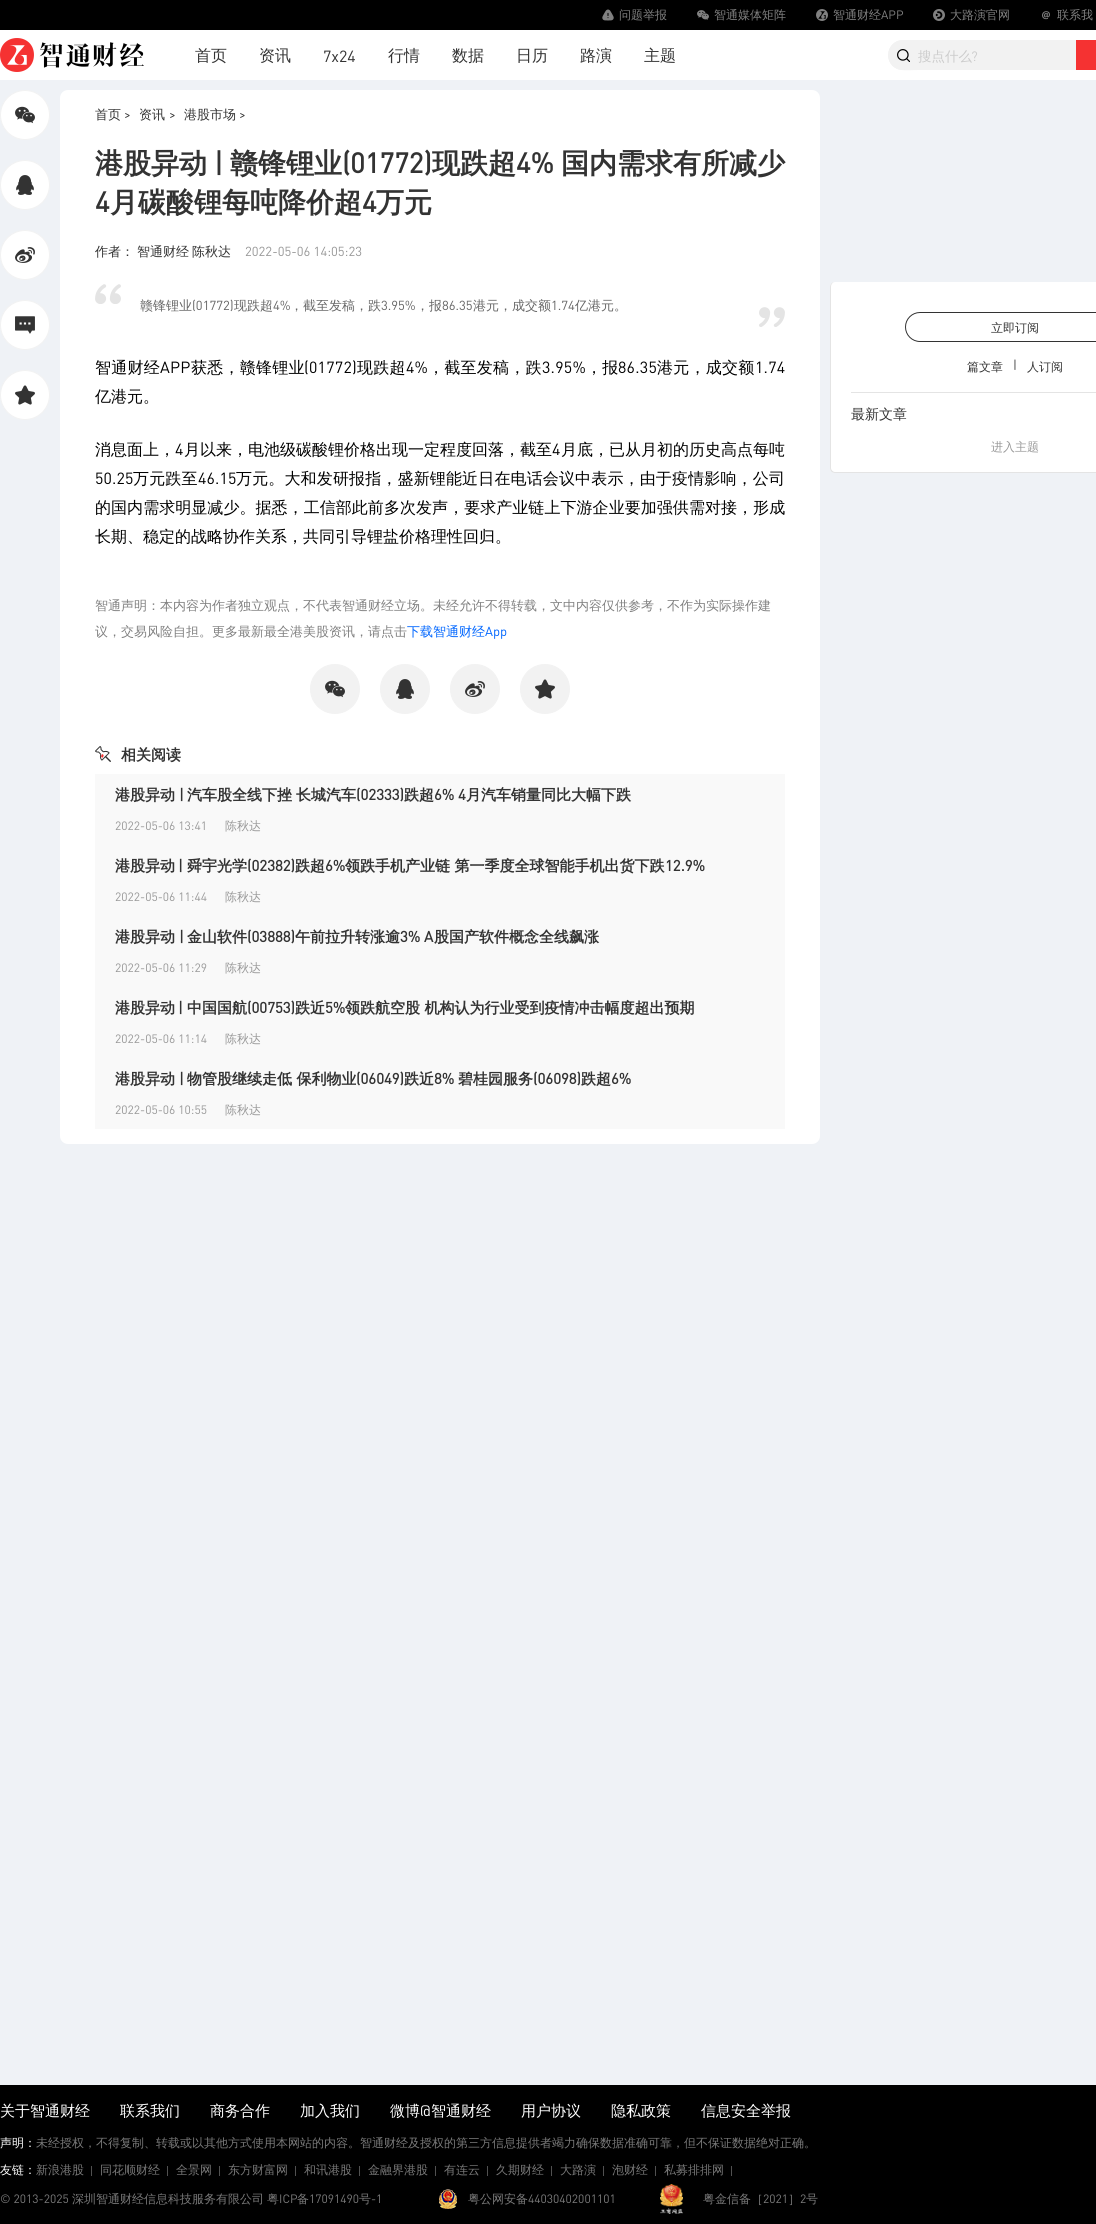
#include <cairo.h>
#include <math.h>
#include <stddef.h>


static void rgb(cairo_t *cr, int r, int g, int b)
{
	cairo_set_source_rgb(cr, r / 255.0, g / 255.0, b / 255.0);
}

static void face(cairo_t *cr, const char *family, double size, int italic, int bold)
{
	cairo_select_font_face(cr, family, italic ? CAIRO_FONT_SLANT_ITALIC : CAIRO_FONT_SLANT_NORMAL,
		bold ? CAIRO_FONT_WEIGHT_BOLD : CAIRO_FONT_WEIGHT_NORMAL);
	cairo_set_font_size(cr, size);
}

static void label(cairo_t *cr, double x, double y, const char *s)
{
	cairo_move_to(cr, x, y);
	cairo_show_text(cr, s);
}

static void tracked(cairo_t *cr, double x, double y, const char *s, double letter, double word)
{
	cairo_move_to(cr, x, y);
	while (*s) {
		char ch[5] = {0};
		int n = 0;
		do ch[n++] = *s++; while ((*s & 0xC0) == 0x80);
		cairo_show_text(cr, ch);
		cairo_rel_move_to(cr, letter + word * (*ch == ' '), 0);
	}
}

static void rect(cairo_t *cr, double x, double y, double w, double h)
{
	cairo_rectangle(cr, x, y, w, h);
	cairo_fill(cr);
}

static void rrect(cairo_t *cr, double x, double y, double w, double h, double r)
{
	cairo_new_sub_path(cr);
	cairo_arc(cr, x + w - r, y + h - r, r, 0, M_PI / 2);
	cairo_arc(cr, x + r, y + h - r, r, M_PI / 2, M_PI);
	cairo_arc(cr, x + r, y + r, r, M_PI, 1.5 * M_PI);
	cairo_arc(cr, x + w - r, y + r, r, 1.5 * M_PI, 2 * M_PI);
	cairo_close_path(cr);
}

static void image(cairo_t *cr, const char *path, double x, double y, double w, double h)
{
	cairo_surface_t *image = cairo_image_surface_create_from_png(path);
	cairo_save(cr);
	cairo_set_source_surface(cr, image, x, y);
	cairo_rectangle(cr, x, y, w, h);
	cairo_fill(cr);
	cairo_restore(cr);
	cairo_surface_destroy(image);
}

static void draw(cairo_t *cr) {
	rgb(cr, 239, 242, 246);
	cairo_paint(cr);
	rgb(cr, 255, 255, 255);
	rect(cr, 0, 30, 1096, 50);
	rgb(cr, 0, 0, 0);
	rect(cr, 0, 0, 1096, 30);
	image(cr, "image0.png", 602, 9, 12, 12);
	face(cr, "WenQuanYi Zen Hei Medium", 12, 0, 0);
	rgb(cr, 128, 128, 128);
	label(cr, 619, 19, "问题举报");
	image(cr, "image1.png", 697, 10, 12, 10);
	label(cr, 714, 19, "智通媒体矩阵");
	image(cr, "image2.png", 816, 9, 12, 12);
	label(cr, 833, 19, "智通财经");
	face(cr, "DIN", 12, 0, 0);
	label(cr, 881, 19, "APP");
	image(cr, "image3.png", 933, 9, 12, 12);
	face(cr, "WenQuanYi Zen Hei Medium", 12, 0, 0);
	label(cr, 950, 19, "大路演官网");
	image(cr, "image4.png", 1042, 11, 8, 9);
	label(cr, 1057, 19, "联系我");
	image(cr, "image5.png", 0, 38, 144, 34);
	face(cr, "WenQuanYi Zen Hei Medium", 16, 0, 0);
	rgb(cr, 51, 51, 51);
	label(cr, 195, 61, "首页");
	label(cr, 259, 61, "资讯");
	face(cr, "DIN", 16, 0, 0);
	label(cr, 323, 62, "7x24");
	face(cr, "WenQuanYi Zen Hei Medium", 16, 0, 0);
	label(cr, 388, 61, "行情");
	label(cr, 452, 61, "数据");
	label(cr, 516, 61, "日历");
	label(cr, 580, 61, "路演");
	label(cr, 644, 61, "主题");
	rgb(cr, 242, 242, 242);
	rrect(cr, 888, 40, 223, 30, 15);
	cairo_fill(cr);
	cairo_set_fill_rule(cr, CAIRO_FILL_RULE_EVEN_ODD);
	cairo_new_path(cr);
	cairo_move_to(cr, 903, 40);
	cairo_line_to(cr, 918, 40);
	cairo_line_to(cr, 918, 70);
	cairo_curve_to(cr, 912.5, 70, 902, 71, 897, 69);
	cairo_curve_to(cr, 882.5, 62.5, 887, 40, 903, 40);
	cairo_close_path(cr);
	cairo_move_to(cr, 903, 41);
	cairo_line_to(cr, 918, 41);
	cairo_line_to(cr, 918, 69);
	cairo_curve_to(cr, 912.5, 69, 902, 70, 897.5, 68);
	cairo_curve_to(cr, 883.5, 62, 888, 41, 903, 41);
	cairo_close_path(cr);
	cairo_fill(cr);
	image(cr, "image6.png", 897, 49, 13, 13);
	face(cr, "WenQuanYi Zen Hei Medium", 13.5, 0, 0);
	rgb(cr, 204, 204, 204);
	label(cr, 918, 61, "搜点什么");
	face(cr, "DIN", 13.5, 0, 0);
	label(cr, 971, 61, "?");
	rgb(cr, 245, 50, 50);
	rect(cr, 1076, 40, 20, 30);
	rgb(cr, 255, 255, 255);
	cairo_new_path(cr);
	cairo_arc(cr, 25, 115, 24.5, 0, 2 * M_PI);
	cairo_fill_preserve(cr);
	rgb(cr, 242, 242, 242);
	cairo_set_line_width(cr, 1);
	cairo_stroke(cr);
	image(cr, "image7.png", 15, 106, 20, 18);
	rgb(cr, 255, 255, 255);
	cairo_arc(cr, 25, 185, 24.5, 0, 2 * M_PI);
	cairo_fill_preserve(cr);
	rgb(cr, 242, 242, 242);
	cairo_stroke(cr);
	image(cr, "image8.png", 16, 175, 18, 20);
	rgb(cr, 255, 255, 255);
	cairo_arc(cr, 25, 255, 24.5, 0, 2 * M_PI);
	cairo_fill_preserve(cr);
	rgb(cr, 242, 242, 242);
	cairo_stroke(cr);
	image(cr, "image9.png", 15, 247, 20, 16);
	rgb(cr, 255, 255, 255);
	cairo_arc(cr, 25, 325, 24.5, 0, 2 * M_PI);
	cairo_fill_preserve(cr);
	rgb(cr, 242, 242, 242);
	cairo_stroke(cr);
	image(cr, "image10.png", 15, 316, 20, 18);
	rgb(cr, 255, 255, 255);
	cairo_arc(cr, 25, 395, 24.5, 0, 2 * M_PI);
	cairo_fill_preserve(cr);
	rgb(cr, 242, 242, 242);
	cairo_stroke(cr);
	image(cr, "image11.png", 15, 385, 20, 20);
	rgb(cr, 255, 255, 255);
	rrect(cr, 60, 90, 760, 1054, 8);
	cairo_fill(cr);
	face(cr, "WenQuanYi Zen Hei Medium", 13, 0, 0);
	rgb(cr, 51, 51, 51);
	label(cr, 95, 119, "首页");
	face(cr, "DIN", 13, 0, 0);
	label(cr, 124, 119, ">");
	face(cr, "WenQuanYi Zen Hei Medium", 13, 0, 0);
	label(cr, 139, 119, "资讯");
	face(cr, "DIN", 13, 0, 0);
	label(cr, 169, 119, ">");
	face(cr, "WenQuanYi Zen Hei Medium", 13, 0, 0);
	label(cr, 184, 119, "港股市场");
	face(cr, "DIN", 13, 0, 0);
	label(cr, 239, 119, ">");
	face(cr, "WenQuanYi Zen Hei", 28, 0, 1);
	label(cr, 95, 173, "港股异动");
	face(cr, "DIN", 28, 0, 1);
	label(cr, 214, 173, "|");
	face(cr, "WenQuanYi Zen Hei", 28, 0, 1);
	label(cr, 230, 173, "赣锋锂业");
	face(cr, "DIN", 28, 0, 1);
	label(cr, 342, 173, "(01772)");
	face(cr, "WenQuanYi Zen Hei", 28, 0, 1);
	label(cr, 432, 173, "现跌超");
	face(cr, "DIN", 28, 0, 1);
	label(cr, 516, 173, "4%");
	face(cr, "WenQuanYi Zen Hei", 28, 0, 1);
	label(cr, 561, 173, "国内需求有所减少");
	face(cr, "DIN", 28, 0, 1);
	label(cr, 95, 212, "4");
	face(cr, "WenQuanYi Zen Hei", 28, 0, 1);
	label(cr, 110, 212, "月碳酸锂每吨降价超");
	face(cr, "DIN", 28, 0, 1);
	label(cr, 362, 212, "4");
	face(cr, "WenQuanYi Zen Hei", 28, 0, 1);
	label(cr, 376, 212, "万元");
	face(cr, "WenQuanYi Zen Hei Medium", 13, 0, 0);
	label(cr, 95, 256, "作者：");
	label(cr, 137, 256, "智通财经");
	label(cr, 192, 256, "陈秋达");
	face(cr, "DIN", 13, 0, 0);
	rgb(cr, 153, 153, 153);
	label(cr, 245, 256, "2022-05-06 14:05:23");
	image(cr, "image12.png", 95, 284, 26, 20);
	face(cr, "WenQuanYi Zen Hei Medium", 13, 0, 0);
	rgb(cr, 102, 102, 102);
	label(cr, 140, 310, "赣锋锂业");
	face(cr, "DIN", 13, 0, 0);
	label(cr, 192, 310, "(01772)");
	face(cr, "WenQuanYi Zen Hei Medium", 13, 0, 0);
	label(cr, 234, 310, "现跌超");
	face(cr, "DIN", 13, 0, 0);
	label(cr, 273, 310, "4%");
	face(cr, "WenQuanYi Zen Hei Medium", 13, 0, 0);
	label(cr, 290, 310, "，截至发稿，跌");
	face(cr, "DIN", 13, 0, 0);
	label(cr, 381, 310, "3.95%");
	face(cr, "WenQuanYi Zen Hei Medium", 13, 0, 0);
	label(cr, 416, 310, "，报");
	face(cr, "DIN", 13, 0, 0);
	label(cr, 442, 310, "86.35");
	face(cr, "WenQuanYi Zen Hei Medium", 13, 0, 0);
	label(cr, 473, 310, "港元，成交额");
	face(cr, "DIN", 13, 0, 0);
	label(cr, 551, 310, "1.74");
	face(cr, "WenQuanYi Zen Hei Medium", 13, 0, 0);
	label(cr, 575, 310, "亿港元。");
	image(cr, "image13.png", 759, 307, 26, 20);
	face(cr, "WenQuanYi Zen Hei Medium", 16, 0, 0);
	rgb(cr, 0, 0, 0);
	tracked(cr, 95, 373, "智通财经", 0.25, 0);
	face(cr, "DIN", 16, 0, 0);
	tracked(cr, 160, 373, "APP", 0.25, 0);
	face(cr, "WenQuanYi Zen Hei Medium", 16, 0, 0);
	tracked(cr, 191, 373, "获悉，赣锋锂业", 0.25, 0);
	face(cr, "DIN", 16, 0, 0);
	tracked(cr, 304, 373, "(01772)", 0.25, 0);
	face(cr, "WenQuanYi Zen Hei Medium", 16, 0, 0);
	tracked(cr, 357, 373, "现跌超", 0.25, 0);
	face(cr, "DIN", 16, 0, 0);
	tracked(cr, 406, 373, "4%", 0.25, 0);
	face(cr, "WenQuanYi Zen Hei Medium", 16, 0, 0);
	tracked(cr, 428, 373, "，截至发稿，跌", 0.25, 0);
	face(cr, "DIN", 16, 0, 0);
	tracked(cr, 542, 373, "3.95%", 0.25, 0);
	face(cr, "WenQuanYi Zen Hei Medium", 16, 0, 0);
	tracked(cr, 586, 373, "，报", 0.25, 0);
	face(cr, "DIN", 16, 0, 0);
	tracked(cr, 618, 373, "86.35", 0.25, 0);
	face(cr, "WenQuanYi Zen Hei Medium", 16, 0, 0);
	tracked(cr, 657, 373, "港元，成交额", 0.25, 0);
	face(cr, "DIN", 16, 0, 0);
	tracked(cr, 755, 373, "1.74", 0.25, 0);
	face(cr, "WenQuanYi Zen Hei Medium", 16, 0, 0);
	label(cr, 95, 402, "亿港元。");
	label(cr, 95, 455, "消息面上，");
	face(cr, "DIN", 16, 0, 0);
	label(cr, 175, 455, "4");
	face(cr, "WenQuanYi Zen Hei Medium", 16, 0, 0);
	label(cr, 184, 455, "月以来，电池级碳酸锂价格出现一定程度回落，截至");
	face(cr, "DIN", 16, 0, 0);
	label(cr, 552, 455, "4");
	face(cr, "WenQuanYi Zen Hei Medium", 16, 0, 0);
	label(cr, 561, 455, "月底，已从月初的历史高点每吨");
	face(cr, "DIN", 16, 0, 0);
	tracked(cr, 95, 484, "50.25", 0.15, 0);
	face(cr, "WenQuanYi Zen Hei Medium", 16, 0, 0);
	tracked(cr, 133, 484, "万元跌至", 0.15, 0);
	face(cr, "DIN", 16, 0, 0);
	tracked(cr, 198, 484, "46.15", 0.15, 0);
	face(cr, "WenQuanYi Zen Hei Medium", 16, 0, 0);
	tracked(cr, 236, 484, "万元。大和发研报指，盛新锂能近日在电话会议中表示，由于疫情影响，公司", 0.15, 0);
	tracked(cr, 95, 513, "的国内需求明显减少。据悉，工信部此前多次发声，要求产业链上下游企业要加强供需对接，形成", 0.05, 0);
	label(cr, 95, 542, "长期、稳定的战略协作关系，共同引导锂盐价格理性回归。");
	face(cr, "WenQuanYi Zen Hei Medium", 13, 0, 0);
	rgb(cr, 128, 128, 128);
	label(cr, 95, 610, "智通声明：本内容为作者独立观点，不代表智通财经立场。未经允许不得转载，文中内容仅供参考，不作为实际操作建");
	label(cr, 95, 636, "议，交易风险自担。更多最新最全港美股资讯，请点击");
	rgb(cr, 0, 102, 255);
	label(cr, 407, 636, "下载智通财经");
	face(cr, "DIN", 13, 0, 0);
	label(cr, 485, 636, "App");
	rgb(cr, 242, 242, 242);
	cairo_new_path(cr);
	cairo_arc(cr, 335, 689, 24.5, 0, 2 * M_PI);
	cairo_fill_preserve(cr);
	cairo_stroke(cr);
	image(cr, "image14.png", 325, 680, 20, 18);
	cairo_arc(cr, 405, 689, 24.5, 0, 2 * M_PI);
	cairo_fill_preserve(cr);
	cairo_stroke(cr);
	image(cr, "image15.png", 396, 679, 18, 20);
	cairo_arc(cr, 475, 689, 24.5, 0, 2 * M_PI);
	cairo_fill_preserve(cr);
	cairo_stroke(cr);
	image(cr, "image16.png", 465, 681, 20, 16);
	cairo_arc(cr, 545, 689, 24.5, 0, 2 * M_PI);
	cairo_fill_preserve(cr);
	cairo_stroke(cr);
	image(cr, "image17.png", 535, 679, 20, 20);
	image(cr, "image18.png", 95, 746, 16, 16);
	face(cr, "WenQuanYi Zen Hei", 15, 0, 1);
	rgb(cr, 51, 51, 51);
	label(cr, 121, 760, "相关阅读");
	rgb(cr, 249, 249, 249);
	rect(cr, 95, 774, 690, 355);
	rgb(cr, 51, 51, 51);
	label(cr, 115, 800, "港股异动");
	face(cr, "DIN", 15, 0, 1);
	label(cr, 179, 800, "|");
	face(cr, "WenQuanYi Zen Hei", 15, 0, 1);
	label(cr, 187, 800, "汽车股全线下挫");
	label(cr, 296, 800, "长城汽车");
	face(cr, "DIN", 15, 0, 1);
	label(cr, 356, 800, "(02333)");
	face(cr, "WenQuanYi Zen Hei", 15, 0, 1);
	label(cr, 404, 800, "跌超");
	face(cr, "DIN", 15, 0, 1);
	label(cr, 434, 800, "6% 4");
	face(cr, "WenQuanYi Zen Hei", 15, 0, 1);
	label(cr, 466, 800, "月汽车销量同比大幅下跌");
	face(cr, "DIN", 12, 0, 0);
	rgb(cr, 153, 153, 153);
	label(cr, 115, 830, "2022-05-06 13:41");
	face(cr, "WenQuanYi Zen Hei Medium", 12, 0, 0);
	label(cr, 225, 830, "陈秋达");
	face(cr, "WenQuanYi Zen Hei", 15, 0, 1);
	rgb(cr, 51, 51, 51);
	label(cr, 115, 871, "港股异动");
	face(cr, "DIN", 15, 0, 1);
	label(cr, 178, 871, "|");
	face(cr, "WenQuanYi Zen Hei", 15, 0, 1);
	label(cr, 187, 871, "舜宇光学");
	face(cr, "DIN", 15, 0, 1);
	label(cr, 247, 871, "(02382)");
	face(cr, "WenQuanYi Zen Hei", 15, 0, 1);
	label(cr, 295, 871, "跌超");
	face(cr, "DIN", 15, 0, 1);
	label(cr, 325, 871, "6%");
	face(cr, "WenQuanYi Zen Hei", 15, 0, 1);
	label(cr, 345, 871, "领跌手机产业链 第一季度全球智能手机出货下跌");
	face(cr, "DIN", 15, 0, 1);
	label(cr, 665, 871, "12.9%");
	face(cr, "DIN", 12, 0, 0);
	rgb(cr, 153, 153, 153);
	label(cr, 115, 901, "2022-05-06 11:44");
	face(cr, "WenQuanYi Zen Hei Medium", 12, 0, 0);
	label(cr, 225, 901, "陈秋达");
	face(cr, "WenQuanYi Zen Hei", 15, 0, 1);
	rgb(cr, 51, 51, 51);
	label(cr, 115, 942, "港股异动");
	face(cr, "DIN", 15, 0, 1);
	label(cr, 179, 942, "|");
	face(cr, "WenQuanYi Zen Hei", 15, 0, 1);
	label(cr, 187, 942, "金山软件");
	face(cr, "DIN", 15, 0, 1);
	label(cr, 247, 942, "(03888)");
	face(cr, "WenQuanYi Zen Hei", 15, 0, 1);
	label(cr, 295, 942, "午前拉升转涨逾");
	face(cr, "DIN", 15, 0, 1);
	label(cr, 400, 942, "3% A");
	face(cr, "WenQuanYi Zen Hei", 15, 0, 1);
	label(cr, 434, 942, "股国产软件概念全线飙涨");
	face(cr, "DIN", 12, 0, 0);
	rgb(cr, 153, 153, 153);
	label(cr, 115, 972, "2022-05-06 11:29");
	face(cr, "WenQuanYi Zen Hei Medium", 12, 0, 0);
	label(cr, 225, 972, "陈秋达");
	face(cr, "WenQuanYi Zen Hei", 15, 0, 1);
	rgb(cr, 51, 51, 51);
	label(cr, 115, 1013, "港股异动");
	face(cr, "DIN", 15, 0, 1);
	label(cr, 178, 1013, "|");
	face(cr, "WenQuanYi Zen Hei", 15, 0, 1);
	label(cr, 187, 1013, "中国国航");
	face(cr, "DIN", 15, 0, 1);
	label(cr, 247, 1013, "(00753)");
	face(cr, "WenQuanYi Zen Hei", 15, 0, 1);
	label(cr, 295, 1013, "跌近");
	face(cr, "DIN", 15, 0, 1);
	label(cr, 325, 1013, "5%");
	face(cr, "WenQuanYi Zen Hei", 15, 0, 1);
	label(cr, 345, 1013, "领跌航空股 机构认为行业受到疫情冲击幅度超出预期");
	face(cr, "DIN", 12, 0, 0);
	rgb(cr, 153, 153, 153);
	label(cr, 115, 1043, "2022-05-06 11:14");
	face(cr, "WenQuanYi Zen Hei Medium", 12, 0, 0);
	label(cr, 225, 1043, "陈秋达");
	face(cr, "WenQuanYi Zen Hei", 15, 0, 1);
	rgb(cr, 51, 51, 51);
	label(cr, 115, 1084, "港股异动");
	face(cr, "DIN", 15, 0, 1);
	label(cr, 179, 1084, "|");
	face(cr, "WenQuanYi Zen Hei", 15, 0, 1);
	label(cr, 187, 1084, "物管股继续走低 保利物业");
	face(cr, "DIN", 15, 0, 1);
	label(cr, 356, 1084, "(06049)");
	face(cr, "WenQuanYi Zen Hei", 15, 0, 1);
	label(cr, 404, 1084, "跌近");
	face(cr, "DIN", 15, 0, 1);
	label(cr, 434, 1084, "8%");
	face(cr, "WenQuanYi Zen Hei", 15, 0, 1);
	label(cr, 458, 1084, "碧桂园服务");
	face(cr, "DIN", 15, 0, 1);
	label(cr, 533, 1084, "(06098)");
	face(cr, "WenQuanYi Zen Hei", 15, 0, 1);
	label(cr, 581, 1084, "跌超");
	face(cr, "DIN", 15, 0, 1);
	label(cr, 611, 1084, "6%");
	face(cr, "DIN", 12, 0, 0);
	rgb(cr, 153, 153, 153);
	label(cr, 115, 1114, "2022-05-06 10:55");
	face(cr, "WenQuanYi Zen Hei Medium", 12, 0, 0);
	label(cr, 225, 1114, "陈秋达");
	rgb(cr, 255, 255, 255);
	rrect(cr, 830, 282, 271, 191, 5);
	cairo_fill(cr);
	rgb(cr, 228, 228, 228);
	cairo_new_path(cr);
	cairo_move_to(cr, 835, 282);
	cairo_line_to(cr, 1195, 282);
	cairo_curve_to(cr, 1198, 282, 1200, 284, 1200, 287);
	cairo_line_to(cr, 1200, 468);
	cairo_curve_to(cr, 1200, 471, 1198, 473, 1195, 473);
	cairo_line_to(cr, 835, 473);
	cairo_curve_to(cr, 832, 473, 830, 471, 830, 468);
	cairo_line_to(cr, 830, 287);
	cairo_curve_to(cr, 830, 284, 832, 282, 835, 282);
	cairo_close_path(cr);
	cairo_move_to(cr, 835, 282);
	cairo_line_to(cr, 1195, 282);
	cairo_curve_to(cr, 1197, 282, 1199, 284, 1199, 287);
	cairo_line_to(cr, 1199, 468);
	cairo_curve_to(cr, 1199, 470, 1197, 472, 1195, 472);
	cairo_line_to(cr, 835, 472);
	cairo_curve_to(cr, 833, 472, 831, 470, 831, 468);
	cairo_line_to(cr, 831, 287);
	cairo_curve_to(cr, 831, 284, 833, 282, 835, 282);
	cairo_close_path(cr);
	cairo_fill(cr);
	rrect(cr, 905.5, 312.5, 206, 29, 14.5);
	rgb(cr, 51, 51, 51);
	cairo_stroke(cr);
	label(cr, 991, 332, "立即订阅");
	label(cr, 967, 371, "篇文章");
	face(cr, "DIN", 12, 0, 0);
	label(cr, 1013, 369, "|");
	face(cr, "WenQuanYi Zen Hei Medium", 12, 0, 0);
	label(cr, 1027, 371, "人订阅");
	rgb(cr, 228, 228, 228);
	rect(cr, 851, 392, 245, 1);
	face(cr, "WenQuanYi Zen Hei Medium", 14, 0, 0);
	rgb(cr, 51, 51, 51);
	label(cr, 851, 419, "最新文章");
	face(cr, "WenQuanYi Zen Hei Medium", 12, 0, 0);
	rgb(cr, 153, 153, 153);
	label(cr, 991, 451, "进入主题");
	rgb(cr, 0, 0, 0);
	rect(cr, 0, 2085, 1096, 139);
	face(cr, "WenQuanYi Zen Hei Medium", 15, 0, 0);
	rgb(cr, 255, 255, 255);
	label(cr, 0, 2116, "关于智通财经");
	label(cr, 120, 2116, "联系我们");
	label(cr, 210, 2116, "商务合作");
	label(cr, 300, 2116, "加入我们");
	label(cr, 390, 2116, "微博");
	face(cr, "DIN", 15, 0, 0);
	label(cr, 420, 2116, "@");
	face(cr, "WenQuanYi Zen Hei Medium", 15, 0, 0);
	label(cr, 431, 2116, "智通财经");
	label(cr, 521, 2116, "用户协议");
	label(cr, 611, 2116, "隐私政策");
	label(cr, 701, 2116, "信息安全举报");
	face(cr, "WenQuanYi Zen Hei Medium", 12, 0, 0);
	label(cr, 0, 2147, "声明：");
	rgb(cr, 121, 121, 121);
	label(cr, 36, 2147, "未经授权，不得复制、转载或以其他方式使用本网站的内容。智通财经及授权的第三方信息提供者竭力确保数据准确可靠，但不保证数据绝对正确。");
	rgb(cr, 255, 255, 255);
	label(cr, 0, 2174, "友链：");
	rgb(cr, 121, 121, 121);
	label(cr, 36, 2174, "新浪港股");
	rgb(cr, 81, 81, 81);
	rect(cr, 91, 2166, 1, 10);
	rgb(cr, 121, 121, 121);
	label(cr, 100, 2174, "同花顺财经");
	rgb(cr, 81, 81, 81);
	rect(cr, 167, 2166, 1, 10);
	rgb(cr, 121, 121, 121);
	label(cr, 176, 2174, "全景网");
	rgb(cr, 81, 81, 81);
	rect(cr, 219, 2166, 1, 10);
	rgb(cr, 121, 121, 121);
	label(cr, 228, 2174, "东方财富网");
	rgb(cr, 81, 81, 81);
	rect(cr, 295, 2166, 1, 10);
	rgb(cr, 121, 121, 121);
	label(cr, 304, 2174, "和讯港股");
	rgb(cr, 81, 81, 81);
	rect(cr, 359, 2166, 1, 10);
	rgb(cr, 121, 121, 121);
	label(cr, 368, 2174, "金融界港股");
	rgb(cr, 81, 81, 81);
	rect(cr, 435, 2166, 1, 10);
	rgb(cr, 121, 121, 121);
	label(cr, 444, 2174, "有连云");
	rgb(cr, 81, 81, 81);
	rect(cr, 487, 2166, 1, 10);
	rgb(cr, 121, 121, 121);
	label(cr, 496, 2174, "久期财经");
	rgb(cr, 81, 81, 81);
	rect(cr, 551, 2166, 1, 10);
	rgb(cr, 121, 121, 121);
	label(cr, 560, 2174, "大路演");
	rgb(cr, 81, 81, 81);
	rect(cr, 603, 2166, 1, 10);
	rgb(cr, 121, 121, 121);
	label(cr, 612, 2174, "泡财经");
	rgb(cr, 81, 81, 81);
	rect(cr, 655, 2166, 1, 10);
	rgb(cr, 121, 121, 121);
	label(cr, 664, 2174, "私募排排网");
	rgb(cr, 81, 81, 81);
	rect(cr, 731, 2166, 1, 10);
	face(cr, "DIN", 12, 0, 0);
	rgb(cr, 121, 121, 121);
	label(cr, 0, 2203, "© 2013-2025");
	face(cr, "WenQuanYi Zen Hei Medium", 12, 0, 0);
	label(cr, 72, 2203, "深圳智通财经信息科技服务有限公司");
	label(cr, 267, 2203, "粤");
	face(cr, "DIN", 12, 0, 0);
	label(cr, 279, 2203, "ICP");
	face(cr, "WenQuanYi Zen Hei Medium", 12, 0, 0);
	label(cr, 297, 2203, "备");
	face(cr, "DIN", 12, 0, 0);
	label(cr, 309, 2203, "17091490");
	face(cr, "WenQuanYi Zen Hei Medium", 12, 0, 0);
	label(cr, 359, 2203, "号");
	face(cr, "DIN", 12, 0, 0);
	label(cr, 371, 2203, "-1");
	image(cr, "image19.png", 439, 2189, 18, 20);
	face(cr, "WenQuanYi Zen Hei Medium", 12, 0, 0);
	label(cr, 468, 2203, "粤公网安备");
	face(cr, "DIN", 12, 0, 0);
	label(cr, 528, 2203, "44030402001101");
	image(cr, "image20.png", 660, 2184, 23, 30);
	face(cr, "WenQuanYi Zen Hei Medium", 12, 0, 0);
	label(cr, 703, 2203, "粤金信备［");
	face(cr, "DIN", 12, 0, 0);
	label(cr, 763, 2203, "2021");
	face(cr, "WenQuanYi Zen Hei Medium", 12, 0, 0);
	label(cr, 788, 2203, "］");
	face(cr, "DIN", 12, 0, 0);
	label(cr, 800, 2203, "2");
	face(cr, "WenQuanYi Zen Hei Medium", 12, 0, 0);
	label(cr, 806, 2203, "号");
}

int main(void) {
	cairo_surface_t *surface = cairo_image_surface_create(CAIRO_FORMAT_RGB24, 1096, 2224);
	cairo_t *cr = cairo_create(surface);
	cairo_font_options_t *options = cairo_font_options_create();
	cairo_font_options_set_hint_metrics(options, CAIRO_HINT_METRICS_OFF);
	cairo_font_options_set_hint_style(options, CAIRO_HINT_STYLE_NONE);
	cairo_set_font_options(cr, options);
	cairo_set_miter_limit(cr, 4);
	draw(cr);
	cairo_surface_write_to_png(surface, "render.png");
	cairo_font_options_destroy(options);
	cairo_destroy(cr);
	cairo_surface_destroy(surface);
	return 0;
}
